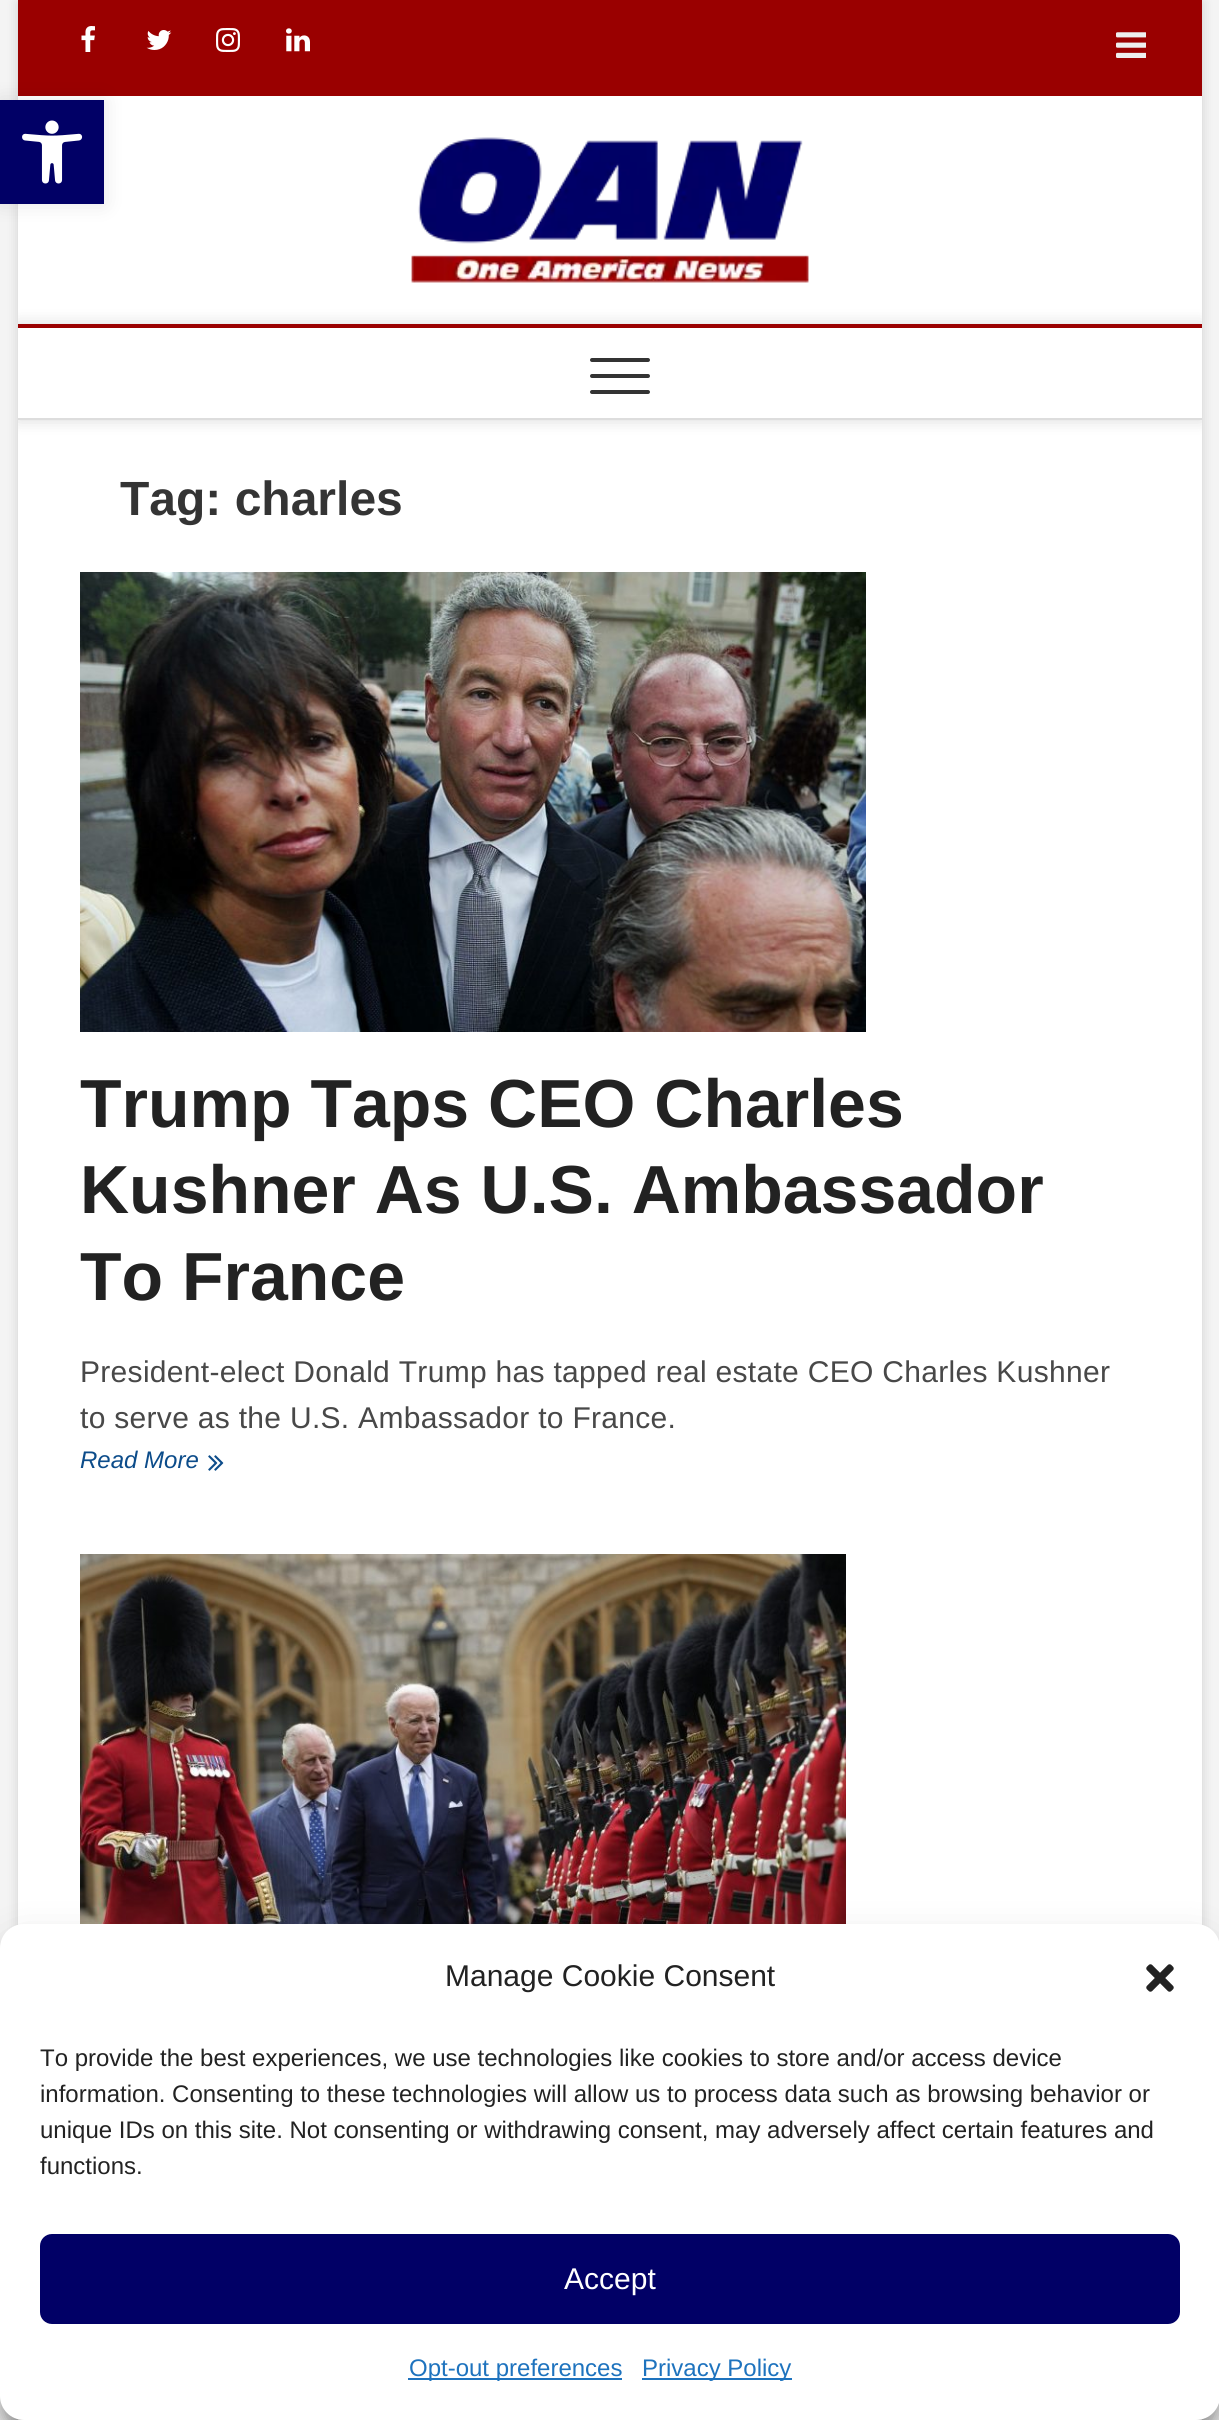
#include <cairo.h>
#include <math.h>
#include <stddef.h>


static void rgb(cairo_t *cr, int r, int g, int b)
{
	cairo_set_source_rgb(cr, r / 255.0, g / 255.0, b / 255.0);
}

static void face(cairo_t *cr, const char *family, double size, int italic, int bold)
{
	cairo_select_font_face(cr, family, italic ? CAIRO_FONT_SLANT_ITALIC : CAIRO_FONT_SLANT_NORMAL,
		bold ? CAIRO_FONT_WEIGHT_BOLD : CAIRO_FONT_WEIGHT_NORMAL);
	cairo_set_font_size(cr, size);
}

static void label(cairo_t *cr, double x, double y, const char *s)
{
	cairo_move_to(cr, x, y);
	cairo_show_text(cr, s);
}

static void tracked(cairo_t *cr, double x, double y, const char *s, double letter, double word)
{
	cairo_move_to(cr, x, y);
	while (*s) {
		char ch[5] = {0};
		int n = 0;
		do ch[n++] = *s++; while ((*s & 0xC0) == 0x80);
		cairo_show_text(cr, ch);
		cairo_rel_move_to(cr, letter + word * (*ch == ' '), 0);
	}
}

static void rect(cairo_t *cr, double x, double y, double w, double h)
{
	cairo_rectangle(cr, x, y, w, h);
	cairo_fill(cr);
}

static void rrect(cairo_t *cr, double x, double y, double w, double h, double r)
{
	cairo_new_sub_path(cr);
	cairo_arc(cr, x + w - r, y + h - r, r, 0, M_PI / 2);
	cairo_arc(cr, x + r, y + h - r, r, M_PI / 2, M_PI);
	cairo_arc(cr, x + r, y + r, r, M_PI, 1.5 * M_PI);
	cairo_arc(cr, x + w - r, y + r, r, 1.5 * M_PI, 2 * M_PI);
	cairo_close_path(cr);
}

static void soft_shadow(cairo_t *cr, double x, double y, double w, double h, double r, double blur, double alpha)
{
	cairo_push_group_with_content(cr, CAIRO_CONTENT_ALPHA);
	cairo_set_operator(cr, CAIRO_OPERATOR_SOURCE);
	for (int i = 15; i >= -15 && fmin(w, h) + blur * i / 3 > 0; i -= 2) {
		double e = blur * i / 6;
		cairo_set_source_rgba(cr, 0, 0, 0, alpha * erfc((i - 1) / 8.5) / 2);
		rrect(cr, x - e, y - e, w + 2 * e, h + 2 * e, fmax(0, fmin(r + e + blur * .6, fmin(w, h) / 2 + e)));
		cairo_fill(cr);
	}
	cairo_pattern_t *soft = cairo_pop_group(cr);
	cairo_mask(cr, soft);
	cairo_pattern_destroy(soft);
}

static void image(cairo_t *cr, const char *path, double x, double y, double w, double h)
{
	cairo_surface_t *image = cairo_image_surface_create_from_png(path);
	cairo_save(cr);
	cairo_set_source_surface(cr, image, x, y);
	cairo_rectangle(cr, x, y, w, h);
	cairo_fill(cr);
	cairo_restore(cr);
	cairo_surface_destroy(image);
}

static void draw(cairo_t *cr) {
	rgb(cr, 244, 244, 244);
	cairo_paint(cr);
	rgb(cr, 0, 0, 0);
	soft_shadow(cr, 18, 2, 1184, 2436, 0, 6, 0.15);
	rgb(cr, 255, 255, 255);
	rect(cr, 18, 96, 1184, 2324);
	rgb(cr, 154, 0, 0);
	rect(cr, 18, 0, 1184, 96);
	rgb(cr, 0, 0, 0);
	soft_shadow(cr, 0, 100, 104, 104, 0, 10, 0.1);
	rgb(cr, 1, 0, 102);
	rect(cr, 0, 100, 104, 104);
	image(cr, "image0.png", 22, 120, 61, 64);
	image(cr, "image1.png", 81, 26, 14, 26);
	image(cr, "image2.png", 146, 30, 26, 20);
	image(cr, "image3.png", 216, 28, 24, 24);
	image(cr, "image4.png", 286, 28, 24, 24);
	image(cr, "image5.png", 1116, 32, 30, 26);
	image(cr, "image6.png", 411, 137, 398, 146);
	cairo_save(cr);
	cairo_rectangle(cr, 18, 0, 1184, 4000);
	cairo_clip(cr);
	cairo_set_fill_rule(cr, CAIRO_FILL_RULE_EVEN_ODD);
	cairo_new_path(cr);
	cairo_move_to(cr, 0, 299);
	cairo_line_to(cr, 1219, 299);
	cairo_line_to(cr, 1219, 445);
	cairo_line_to(cr, 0, 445);
	cairo_close_path(cr);
	cairo_move_to(cr, 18, 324);
	cairo_line_to(cr, 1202, 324);
	cairo_line_to(cr, 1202, 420);
	cairo_line_to(cr, 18, 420);
	cairo_close_path(cr);
	cairo_clip(cr);
	rgb(cr, 0, 0, 0);
	soft_shadow(cr, 18, 324, 1184, 96, 0, 8, 0.15);
	cairo_restore(cr);
	rgb(cr, 154, 0, 0);
	rect(cr, 18, 324, 1184, 4);
	rgb(cr, 221, 221, 221);
	rect(cr, 18, 418, 1184, 2);
	rgb(cr, 51, 51, 51);
	rrect(cr, 590, 374, 60, 4, 2);
	cairo_fill(cr);
	rrect(cr, 590, 358, 60, 4, 2);
	cairo_fill(cr);
	rrect(cr, 590, 390, 60, 4, 2);
	cairo_fill(cr);
	face(cr, "Liberation Sans", 48, 0, 1);
	rgb(cr, 52, 52, 52);
	label(cr, 120, 515, "Tag: charles");
	image(cr, "image7.png", 80, 572, 786, 460);
	face(cr, "Liberation Sans", 68, 0, 1);
	rgb(cr, 34, 34, 34);
	label(cr, 80, 1127, "Trump Taps CEO Charles");
	label(cr, 80, 1213, "Kushner As U.S. Ambassador");
	label(cr, 80, 1300, "To France");
	face(cr, "Liberation Sans", 30, 0, 0);
	rgb(cr, 72, 72, 72);
	tracked(cr, 80, 1382, "President-elect Donald Trump has tapped real estate CEO Charles Kushner", 0.3, 0);
	tracked(cr, 80, 1428, "to serve as the U.S. Ambassador to France.", 0.3, 0);
	face(cr, "Liberation Sans", 24, 1, 0);
	rgb(cr, 12, 76, 138);
	label(cr, 80, 1468, "Read More");
	image(cr, "image8.png", 208, 1455, 16, 16);
	image(cr, "image9.png", 80, 1554, 766, 370);
	rgb(cr, 0, 0, 0);
	soft_shadow(cr, 0, 1936, 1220, 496, 24, 6, 0.23);
	soft_shadow(cr, 0, 1944, 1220, 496, 24, 20, 0.19);
	rgb(cr, 255, 255, 255);
	rrect(cr, 0, 1924, 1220, 496, 24);
	cairo_fill(cr);
	face(cr, "Liberation Sans", 30, 0, 0);
	rgb(cr, 34, 34, 34);
	label(cr, 445, 1986, "Manage Cookie Consent");
	image(cr, "image10.png", 1146, 1964, 28, 28);
	face(cr, "Liberation Sans", 24, 0, 0);
	label(cr, 40, 2066, "To provide the best experiences, we use technologies like cookies to store and/or access device");
	label(cr, 40, 2102, "information. Consenting to these technologies will allow us to process data such as browsing behavior or");
	label(cr, 40, 2138, "unique IDs on this site. Not consenting or withdrawing consent, may adversely affect certain features and");
	label(cr, 40, 2174, "functions.");
	rgb(cr, 1, 0, 102);
	rrect(cr, 41, 2235, 1138, 88, 11);
	cairo_fill_preserve(cr);
	cairo_stroke(cr);
	face(cr, "Liberation Sans", 30, 0, 0);
	rgb(cr, 255, 255, 255);
	label(cr, 564, 2289, "Accept");
	rgb(cr, 30, 115, 190);
	rect(cr, 408, 2378, 214, 2);
	face(cr, "Liberation Sans", 24, 0, 0);
	label(cr, 409, 2376, "Opt-out preferences");
	rect(cr, 642, 2378, 150, 2);
	label(cr, 642, 2376, "Privacy Policy");
}

int main(void) {
	cairo_surface_t *surface = cairo_image_surface_create(CAIRO_FORMAT_RGB24, 1219, 2420);
	cairo_t *cr = cairo_create(surface);
	cairo_font_options_t *options = cairo_font_options_create();
	cairo_font_options_set_hint_metrics(options, CAIRO_HINT_METRICS_OFF);
	cairo_font_options_set_hint_style(options, CAIRO_HINT_STYLE_NONE);
	cairo_set_font_options(cr, options);
	cairo_set_miter_limit(cr, 4);
	draw(cr);
	cairo_surface_write_to_png(surface, "render.png");
	cairo_font_options_destroy(options);
	cairo_destroy(cr);
	cairo_surface_destroy(surface);
	return 0;
}
